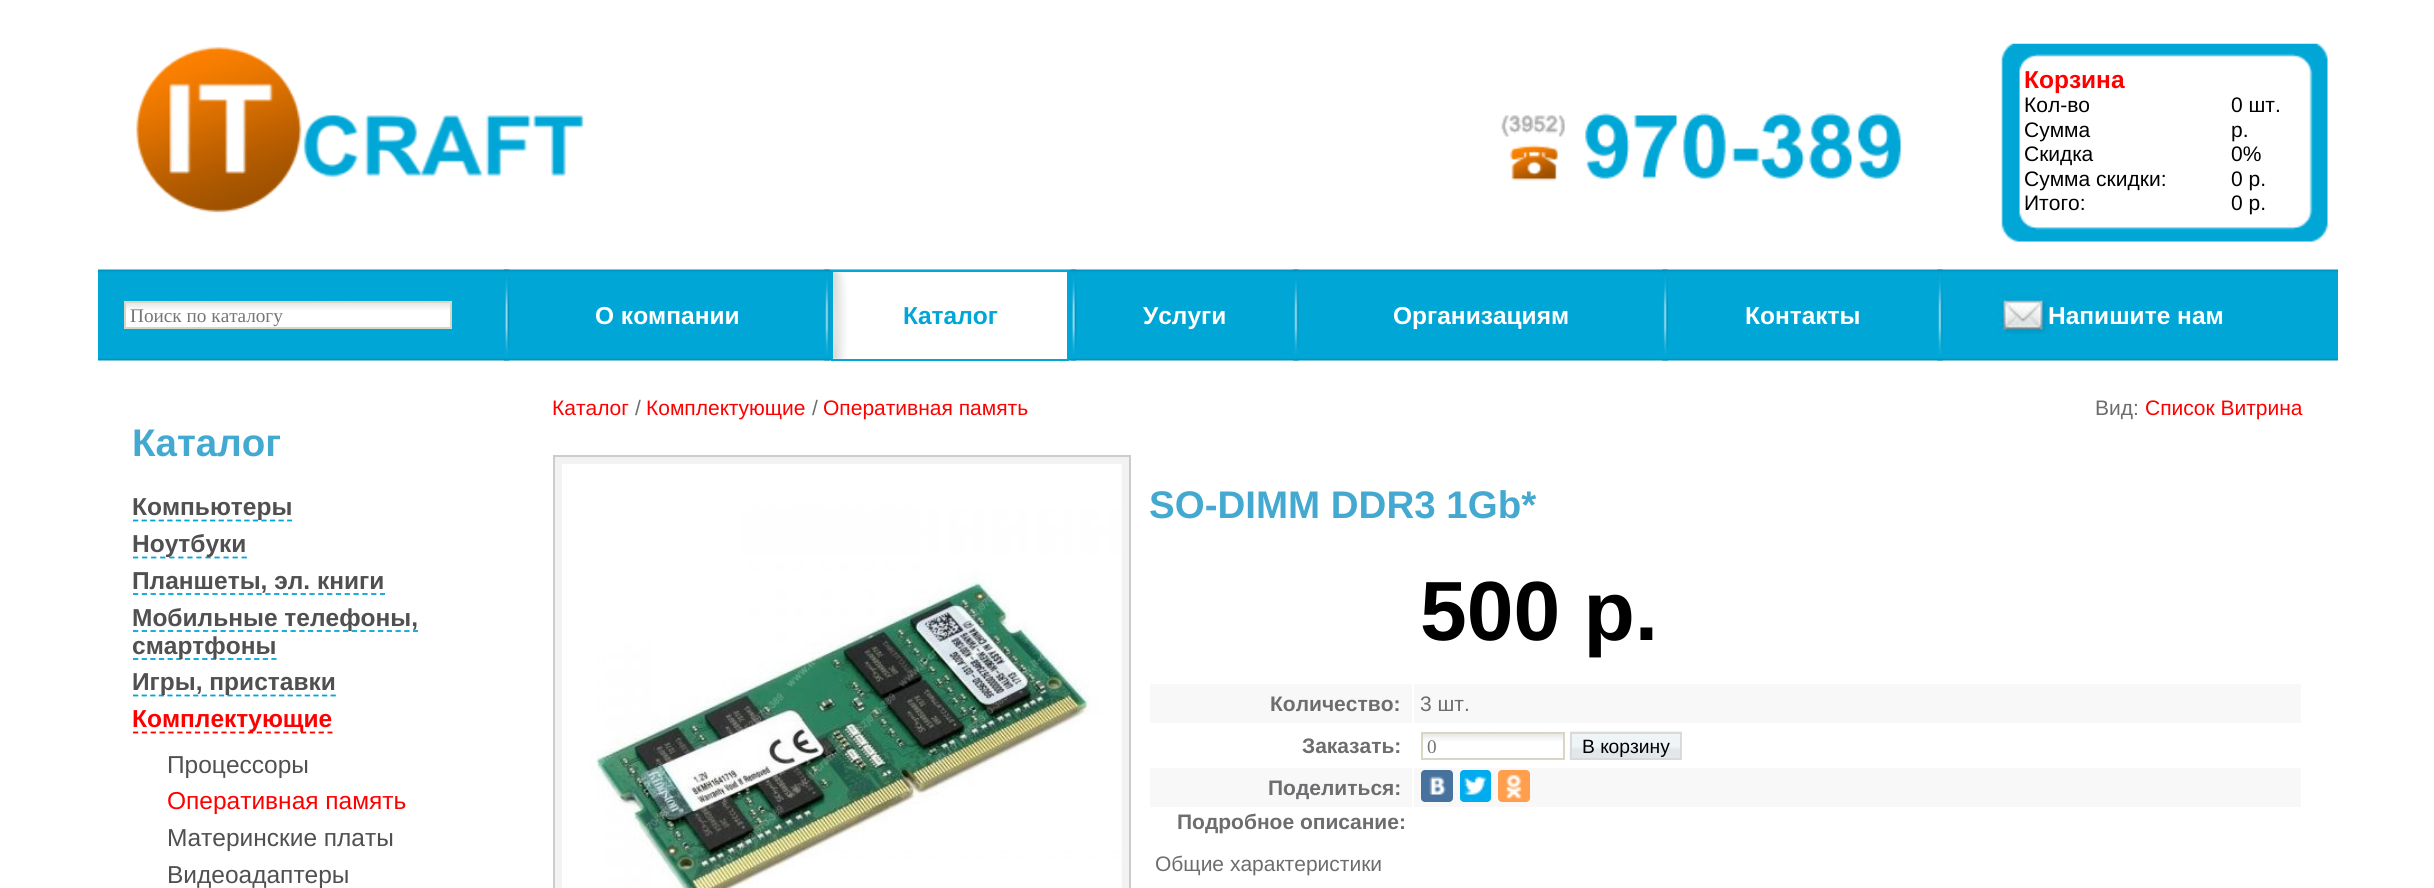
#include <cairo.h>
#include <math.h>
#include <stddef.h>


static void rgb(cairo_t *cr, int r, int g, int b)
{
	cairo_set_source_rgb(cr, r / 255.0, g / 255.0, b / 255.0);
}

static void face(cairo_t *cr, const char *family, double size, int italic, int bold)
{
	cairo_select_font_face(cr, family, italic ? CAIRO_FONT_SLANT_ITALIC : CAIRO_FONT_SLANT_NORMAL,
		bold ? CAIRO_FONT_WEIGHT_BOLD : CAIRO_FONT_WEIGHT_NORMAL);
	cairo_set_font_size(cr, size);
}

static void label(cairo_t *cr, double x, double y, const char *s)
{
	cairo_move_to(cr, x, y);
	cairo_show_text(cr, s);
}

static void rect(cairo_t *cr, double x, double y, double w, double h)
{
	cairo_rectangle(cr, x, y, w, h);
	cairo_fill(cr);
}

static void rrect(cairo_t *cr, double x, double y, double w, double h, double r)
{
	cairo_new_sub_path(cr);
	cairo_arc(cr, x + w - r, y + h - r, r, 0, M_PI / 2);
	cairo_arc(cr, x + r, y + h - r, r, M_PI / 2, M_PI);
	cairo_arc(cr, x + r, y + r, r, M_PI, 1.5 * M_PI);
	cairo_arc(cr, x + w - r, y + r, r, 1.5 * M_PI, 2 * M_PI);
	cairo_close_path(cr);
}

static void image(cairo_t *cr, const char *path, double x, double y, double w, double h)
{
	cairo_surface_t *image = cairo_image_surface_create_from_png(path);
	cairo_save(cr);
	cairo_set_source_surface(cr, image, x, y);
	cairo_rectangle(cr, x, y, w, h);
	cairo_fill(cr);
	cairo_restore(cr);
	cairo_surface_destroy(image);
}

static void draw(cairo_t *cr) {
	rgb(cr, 255, 255, 255);
	cairo_paint(cr);
	image(cr, "image0.png", 136, 46, 448, 167);
	image(cr, "image1.png", 1501, 113, 400, 68);
	image(cr, "image2.png", 2001, 43, 327, 199);
	face(cr, "Liberation Sans", 24.5, 0, 1);
	rgb(cr, 255, 0, 0);
	label(cr, 2024, 88, "Корзина");
	face(cr, "Liberation Sans", 21, 0, 0);
	rgb(cr, 0, 0, 0);
	label(cr, 2024, 112, "Кол-во");
	label(cr, 2231, 112, "0 шт.");
	label(cr, 2024, 137, "Сумма");
	label(cr, 2231, 137, "р.");
	label(cr, 2024, 161, "Скидка");
	label(cr, 2231, 161, "0%");
	label(cr, 2024, 186, "Сумма скидки:");
	label(cr, 2231, 186, "0 р.");
	label(cr, 2024, 210, "Итого:");
	label(cr, 2231, 210, "0 р.");
	image(cr, "image3.png", 98, 269, 2240, 92);
	rgb(cr, 255, 255, 255);
	rect(cr, 126, 310, 324, 17);
	image(cr, "image4.png", 126, 303, 324, 7);
	cairo_rectangle(cr, 125, 302, 326, 26);
	rgb(cr, 217, 214, 196);
	cairo_stroke(cr);
	face(cr, "Liberation Serif", 19.25, 0, 0);
	rgb(cr, 117, 117, 117);
	label(cr, 130, 322, "Поиск по каталогу");
	image(cr, "image5.png", 504, 269, 6, 92);
	face(cr, "Liberation Sans", 24.5, 0, 1);
	rgb(cr, 255, 255, 255);
	label(cr, 595, 324, "О компании");
	image(cr, "image6.png", 824, 269, 6, 92);
	rect(cr, 833, 272, 234, 87);
	image(cr, "image7.png", 833, 272, 14, 87);
	cairo_rectangle(cr, 832, 271, 236, 89);
	rgb(cr, 0, 166, 214);
	cairo_stroke(cr);
	label(cr, 903, 324, "Каталог");
	image(cr, "image8.png", 1071, 269, 6, 92);
	rgb(cr, 255, 255, 255);
	label(cr, 1143, 324, "Услуги");
	image(cr, "image9.png", 1293, 269, 6, 92);
	label(cr, 1393, 324, "Организациям");
	image(cr, "image10.png", 1662, 269, 6, 92);
	label(cr, 1745, 324, "Контакты");
	image(cr, "image6.png", 1937, 269, 6, 92);
	image(cr, "image11.png", 1997, 288, 53, 46);
	label(cr, 2048, 324, "Напишите нам");
	face(cr, "Liberation Sans", 38.5, 0, 1);
	rgb(cr, 68, 169, 208);
	label(cr, 132, 456, "Каталог");
	cairo_new_path(cr);
	cairo_move_to(cr, 133, 520.5);
	cairo_line_to(cr, 292, 520.5);
	rgb(cr, 0, 166, 214);
	cairo_set_line_width(cr, 1.8);
	cairo_set_dash(cr, (double[]){5.25, 3.31}, 2, 0);
	cairo_stroke(cr);
	face(cr, "Liberation Sans", 24.5, 0, 1);
	rgb(cr, 80, 80, 80);
	label(cr, 132, 515, "Компьютеры");
	cairo_new_path(cr);
	cairo_move_to(cr, 133, 557.5);
	cairo_line_to(cr, 247, 557.5);
	rgb(cr, 0, 166, 214);
	cairo_set_dash(cr, (double[]){5.25, 3.8}, 2, 0);
	cairo_stroke(cr);
	rgb(cr, 80, 80, 80);
	label(cr, 132, 552, "Ноутбуки");
	label(cr, 132, 589, "Планшеты, эл. книги");
	cairo_new_path(cr);
	cairo_move_to(cr, 133, 594);
	cairo_line_to(cr, 385, 594);
	rgb(cr, 0, 166, 214);
	cairo_set_dash(cr, (double[]){5.25, 3.57}, 2, 0);
	cairo_stroke(cr);
	cairo_new_path(cr);
	cairo_move_to(cr, 133, 631);
	cairo_line_to(cr, 418, 631);
	cairo_set_dash(cr, (double[]){5.25, 3.5}, 2, 0);
	cairo_stroke(cr);
	rgb(cr, 80, 80, 80);
	label(cr, 132, 626, "Мобильные телефоны,");
	cairo_new_path(cr);
	cairo_move_to(cr, 133, 659);
	cairo_line_to(cr, 276.5, 659);
	rgb(cr, 0, 166, 214);
	cairo_set_dash(cr, (double[]){5.25, 3.4}, 2, 0);
	cairo_stroke(cr);
	rgb(cr, 80, 80, 80);
	label(cr, 132, 654, "смартфоны");
	cairo_new_path(cr);
	cairo_move_to(cr, 133, 695.5);
	cairo_line_to(cr, 336, 695.5);
	rgb(cr, 0, 166, 214);
	cairo_set_dash(cr, (double[]){5.25, 3.34}, 2, 0);
	cairo_stroke(cr);
	rgb(cr, 80, 80, 80);
	label(cr, 132, 690, "Игры, приставки");
	cairo_new_path(cr);
	cairo_move_to(cr, 133, 732.5);
	cairo_line_to(cr, 332.5, 732.5);
	rgb(cr, 255, 0, 0);
	cairo_set_dash(cr, (double[]){5.25, 3.59}, 2, 0);
	cairo_stroke(cr);
	label(cr, 132, 727, "Комплектующие");
	face(cr, "Liberation Sans", 24.5, 0, 0);
	rgb(cr, 80, 80, 80);
	label(cr, 167, 773, "Процессоры");
	rgb(cr, 255, 0, 0);
	label(cr, 167, 809, "Оперативная память");
	rgb(cr, 80, 80, 80);
	label(cr, 167, 846, "Материнские платы");
	label(cr, 167, 883, "Видеоадаптеры");
	face(cr, "Liberation Sans", 21, 0, 0);
	rgb(cr, 255, 0, 0);
	label(cr, 552, 415, "Каталог");
	rgb(cr, 109, 109, 112);
	label(cr, 635, 415, "/");
	rgb(cr, 255, 0, 0);
	label(cr, 646, 415, "Комплектующие");
	rgb(cr, 109, 109, 112);
	label(cr, 812, 415, "/");
	rgb(cr, 255, 0, 0);
	label(cr, 823, 415, "Оперативная память");
	rgb(cr, 109, 109, 112);
	label(cr, 2095, 415, "Вид:");
	rgb(cr, 255, 0, 0);
	label(cr, 2145, 415, "Список Витрина");
	rgb(cr, 242, 242, 242);
	cairo_rectangle(cr, 554, 456, 576, 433);
	cairo_fill_preserve(cr);
	rgb(cr, 204, 204, 204);
	cairo_set_line_width(cr, 2);
	cairo_set_dash(cr, NULL, 0, 0);
	cairo_stroke(cr);
	image(cr, "image12.png", 562, 464, 560, 424);
	face(cr, "Liberation Sans", 38.5, 0, 1);
	rgb(cr, 68, 169, 208);
	label(cr, 1149, 518, "SO-DIMM DDR3 1Gb*");
	face(cr, "Liberation Sans", 84, 0, 1);
	rgb(cr, 0, 0, 0);
	label(cr, 1420, 640, "500 р.");
	rgb(cr, 248, 248, 248);
	rect(cr, 1150, 684, 262, 39);
	face(cr, "Liberation Sans", 21, 0, 1);
	rgb(cr, 109, 109, 112);
	label(cr, 1270, 711, "Количество:");
	rgb(cr, 248, 248, 248);
	rect(cr, 1414, 684, 887, 39);
	face(cr, "Liberation Sans", 21, 0, 0);
	rgb(cr, 109, 109, 112);
	label(cr, 1420, 711, "3 шт.");
	face(cr, "Liberation Sans", 21, 0, 1);
	label(cr, 1302, 753, "Заказать:");
	image(cr, "image13.png", 1423, 734, 140, 7);
	cairo_rectangle(cr, 1422, 733, 142, 26);
	rgb(cr, 217, 214, 196);
	cairo_stroke(cr);
	face(cr, "Liberation Serif", 19.25, 0, 0);
	rgb(cr, 117, 117, 117);
	label(cr, 1427, 753, "0");
	image(cr, "image14.png", 1569, 731, 113, 29);
	cairo_rectangle(cr, 1571, 733, 110, 26);
	rgb(cr, 218, 218, 218);
	cairo_stroke(cr);
	face(cr, "Liberation Sans", 19.25, 0, 0);
	rgb(cr, 0, 0, 0);
	label(cr, 1582, 753, "В корзину");
	rgb(cr, 248, 248, 248);
	rect(cr, 1150, 768, 262, 39);
	face(cr, "Liberation Sans", 21, 0, 1);
	rgb(cr, 109, 109, 112);
	label(cr, 1268, 795, "Поделиться:");
	rgb(cr, 248, 248, 248);
	rect(cr, 1414, 768, 887, 39);
	rgb(cr, 72, 114, 158);
	rrect(cr, 1421, 770, 32, 32, 4);
	cairo_fill(cr);
	image(cr, "image15.png", 1429, 776, 17, 19);
	rgb(cr, 0, 172, 237);
	rrect(cr, 1460, 770, 31, 32, 4);
	cairo_fill(cr);
	image(cr, "image16.png", 1464, 776, 23, 19);
	rgb(cr, 255, 159, 77);
	rrect(cr, 1498, 770, 32, 32, 4);
	cairo_fill(cr);
	image(cr, "image17.png", 1506, 774, 16, 25);
	rgb(cr, 109, 109, 112);
	label(cr, 1177, 829, "Подробное описание:");
	face(cr, "Liberation Sans", 21, 0, 0);
	label(cr, 1155, 871, "Общие характеристики");
}

int main(void) {
	cairo_surface_t *surface = cairo_image_surface_create(CAIRO_FORMAT_RGB24, 2434, 888);
	cairo_t *cr = cairo_create(surface);
	cairo_font_options_t *options = cairo_font_options_create();
	cairo_font_options_set_hint_metrics(options, CAIRO_HINT_METRICS_OFF);
	cairo_font_options_set_hint_style(options, CAIRO_HINT_STYLE_NONE);
	cairo_set_font_options(cr, options);
	cairo_set_miter_limit(cr, 4);
	draw(cr);
	cairo_surface_write_to_png(surface, "render.png");
	cairo_font_options_destroy(options);
	cairo_destroy(cr);
	cairo_surface_destroy(surface);
	return 0;
}
